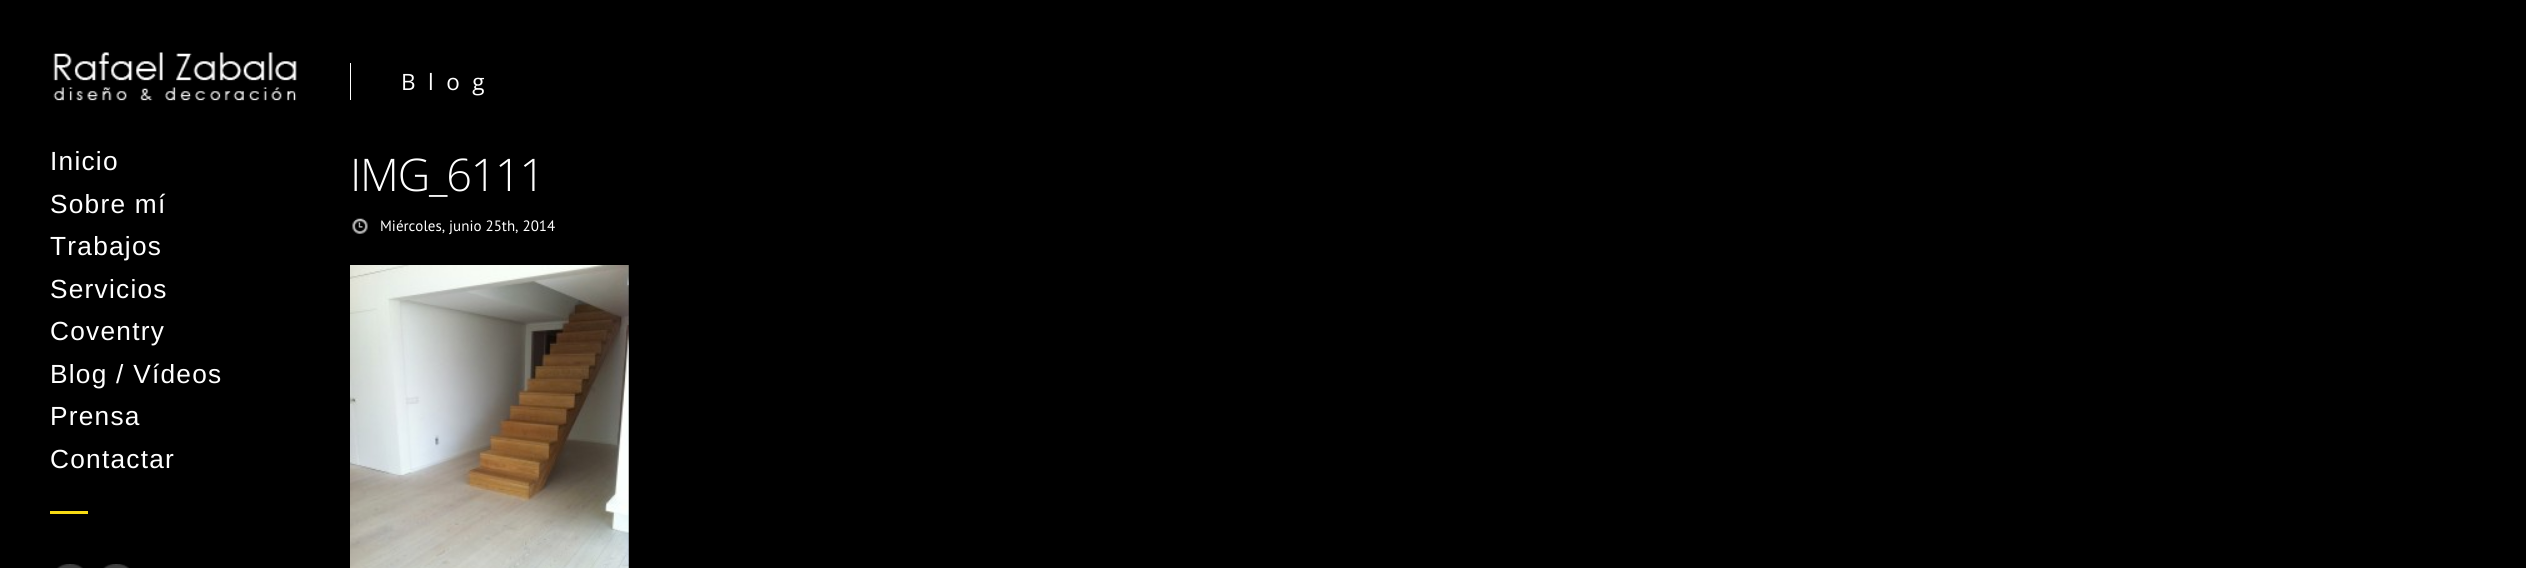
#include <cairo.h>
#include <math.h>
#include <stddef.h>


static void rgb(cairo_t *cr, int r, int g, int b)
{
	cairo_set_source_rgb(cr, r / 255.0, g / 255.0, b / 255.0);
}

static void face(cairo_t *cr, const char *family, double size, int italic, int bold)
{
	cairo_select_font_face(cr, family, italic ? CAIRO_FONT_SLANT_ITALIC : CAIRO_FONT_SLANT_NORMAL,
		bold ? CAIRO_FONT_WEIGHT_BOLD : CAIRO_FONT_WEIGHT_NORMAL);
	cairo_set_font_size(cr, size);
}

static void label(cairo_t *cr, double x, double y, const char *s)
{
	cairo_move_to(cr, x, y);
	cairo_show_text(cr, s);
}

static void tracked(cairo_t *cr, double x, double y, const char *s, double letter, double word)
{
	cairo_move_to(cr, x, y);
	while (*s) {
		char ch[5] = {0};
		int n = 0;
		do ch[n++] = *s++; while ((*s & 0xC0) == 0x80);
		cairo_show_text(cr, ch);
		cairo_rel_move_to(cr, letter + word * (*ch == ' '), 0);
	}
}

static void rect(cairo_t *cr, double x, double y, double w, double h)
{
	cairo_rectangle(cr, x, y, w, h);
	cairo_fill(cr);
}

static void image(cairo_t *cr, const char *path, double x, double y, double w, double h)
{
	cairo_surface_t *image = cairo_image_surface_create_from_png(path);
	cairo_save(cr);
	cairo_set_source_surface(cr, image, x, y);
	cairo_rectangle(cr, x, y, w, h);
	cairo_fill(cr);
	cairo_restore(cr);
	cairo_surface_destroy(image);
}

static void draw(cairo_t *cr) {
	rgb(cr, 0, 0, 0);
	cairo_paint(cr);
	image(cr, "image0.png", 53, 52, 244, 49);
	face(cr, "Liberation Sans", 26.25, 0, 0);
	rgb(cr, 255, 255, 255);
	tracked(cr, 50, 170, "Inicio", 1.25, 0);
	tracked(cr, 50, 213, "Sobre mí", 1.25, 0);
	tracked(cr, 50, 255, "Trabajos", 1.25, 0);
	tracked(cr, 50, 298, "Servicios", 1.25, 0);
	tracked(cr, 50, 340, "Coventry", 1.25, 0);
	tracked(cr, 50, 383, "Blog / Vídeos", 1.25, 0);
	tracked(cr, 50, 425, "Prensa", 1.25, 0);
	tracked(cr, 50, 468, "Contactar", 1.25, 0);
	rgb(cr, 248, 219, 20);
	rect(cr, 50, 511, 38, 3);
	image(cr, "image1.png", 57, 564, 26, 4);
	image(cr, "image2.png", 103, 564, 26, 4);
	rgb(cr, 255, 255, 255);
	rect(cr, 350, 63, 1, 37);
	face(cr, "Open Sans", 22.5, 0, 0);
	tracked(cr, 401, 90, "Blog", 12.5, 0);
	face(cr, "Open Sans Light", 45, 0, 0);
	tracked(cr, 350, 191, "IMG_6111", -1.25, 0);
	image(cr, "image3.png", 352, 218, 16, 16);
	face(cr, "PT Sans", 15, 0, 0);
	label(cr, 380, 231, "Miércoles, junio 25th, 2014");
	image(cr, "image4.png", 350, 265, 279, 303);
}

int main(void) {
	cairo_surface_t *surface = cairo_image_surface_create(CAIRO_FORMAT_RGB24, 2526, 568);
	cairo_t *cr = cairo_create(surface);
	cairo_font_options_t *options = cairo_font_options_create();
	cairo_font_options_set_hint_metrics(options, CAIRO_HINT_METRICS_OFF);
	cairo_font_options_set_hint_style(options, CAIRO_HINT_STYLE_NONE);
	cairo_set_font_options(cr, options);
	cairo_set_miter_limit(cr, 4);
	draw(cr);
	cairo_surface_write_to_png(surface, "render.png");
	cairo_font_options_destroy(options);
	cairo_destroy(cr);
	cairo_surface_destroy(surface);
	return 0;
}
